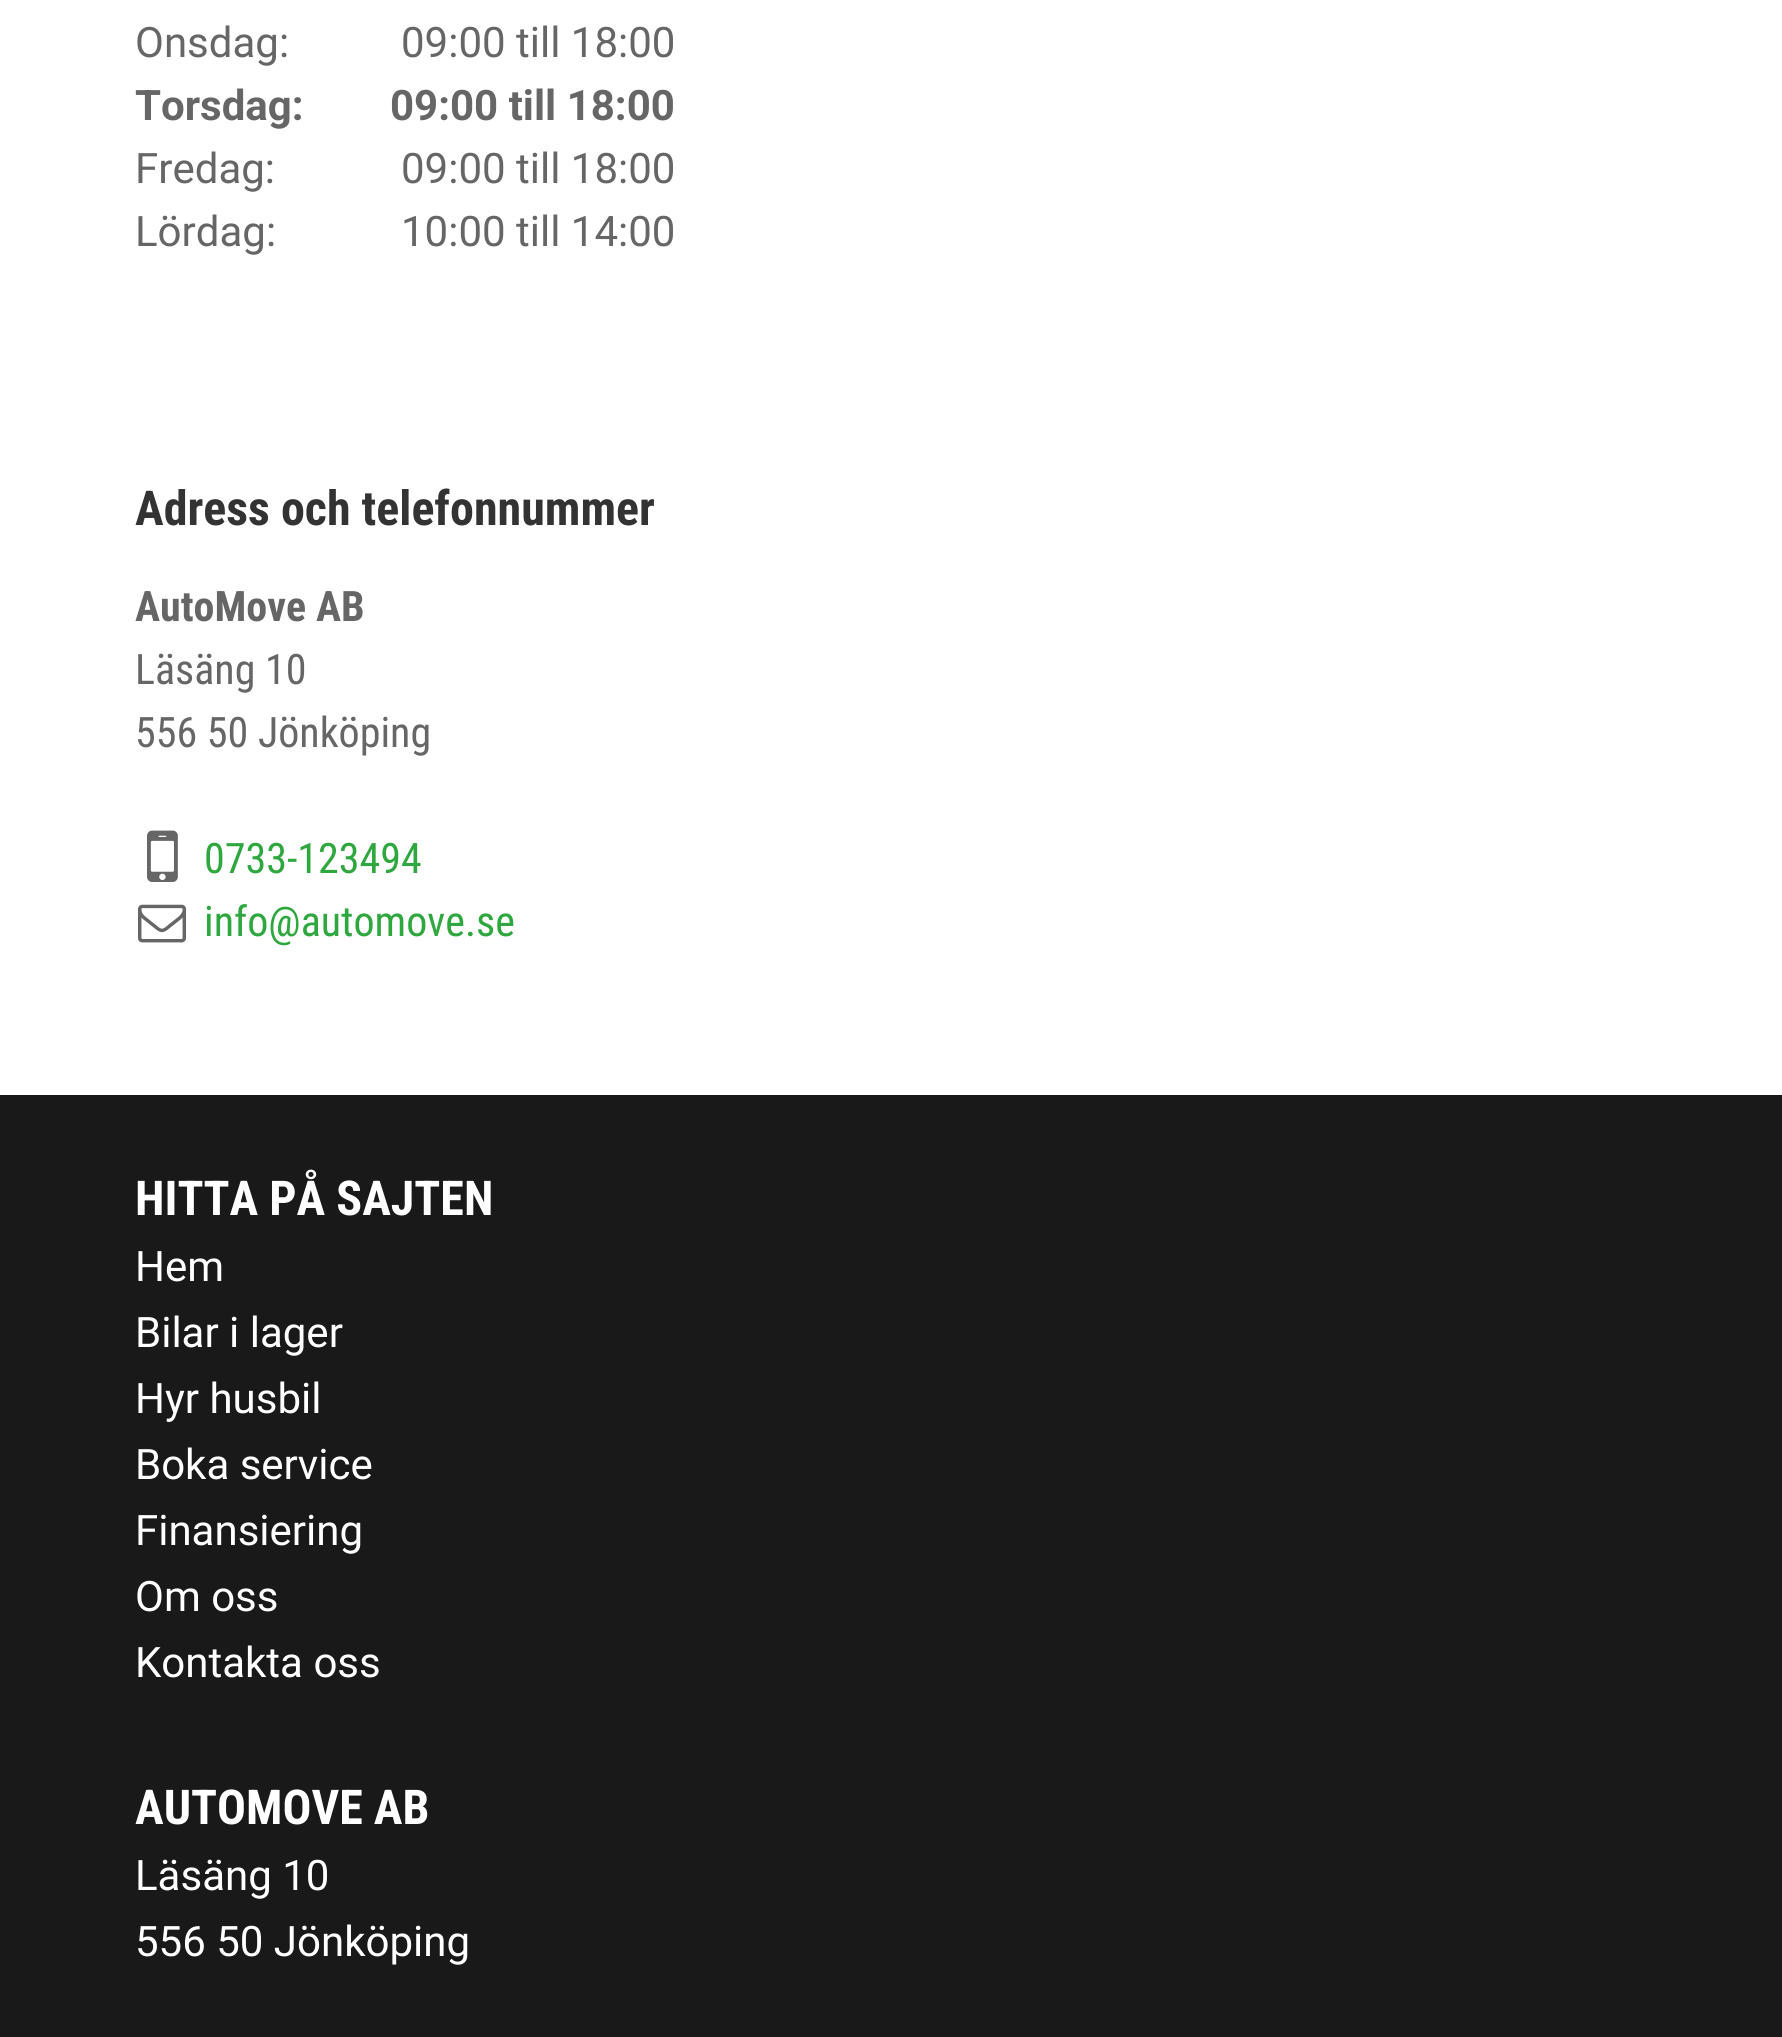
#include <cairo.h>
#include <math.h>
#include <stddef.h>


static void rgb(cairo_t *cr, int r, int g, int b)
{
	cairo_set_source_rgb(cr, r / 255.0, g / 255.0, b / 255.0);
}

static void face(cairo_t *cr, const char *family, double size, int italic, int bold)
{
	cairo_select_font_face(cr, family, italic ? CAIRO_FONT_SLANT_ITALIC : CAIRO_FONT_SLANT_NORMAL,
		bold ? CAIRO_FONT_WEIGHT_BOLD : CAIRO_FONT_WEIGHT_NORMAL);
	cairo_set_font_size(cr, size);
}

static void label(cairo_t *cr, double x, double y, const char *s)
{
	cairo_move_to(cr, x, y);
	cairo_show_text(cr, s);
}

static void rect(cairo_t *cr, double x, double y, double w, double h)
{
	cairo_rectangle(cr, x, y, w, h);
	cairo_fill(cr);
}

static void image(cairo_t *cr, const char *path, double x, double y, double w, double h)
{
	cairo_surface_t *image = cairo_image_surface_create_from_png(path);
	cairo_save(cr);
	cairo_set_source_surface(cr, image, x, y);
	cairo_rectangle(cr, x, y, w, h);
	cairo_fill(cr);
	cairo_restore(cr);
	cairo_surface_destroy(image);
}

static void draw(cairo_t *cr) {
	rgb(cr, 255, 255, 255);
	cairo_paint(cr);
	face(cr, "Roboto", 42, 0, 0);
	rgb(cr, 102, 102, 102);
	label(cr, 135, 57, "Onsdag:");
	label(cr, 401, 57, "09:00 till 18:00");
	face(cr, "Roboto", 42, 0, 1);
	label(cr, 135, 120, "Torsdag:");
	label(cr, 390, 120, "09:00 till 18:00");
	face(cr, "Roboto", 42, 0, 0);
	label(cr, 135, 183, "Fredag:");
	label(cr, 401, 183, "09:00 till 18:00");
	label(cr, 135, 246, "Lördag:");
	label(cr, 401, 246, "10:00 till 14:00");
	face(cr, "Roboto Condensed", 48, 0, 1);
	rgb(cr, 51, 51, 51);
	label(cr, 135, 525, "Adress och telefonnummer");
	face(cr, "Roboto Condensed", 42, 0, 1);
	rgb(cr, 102, 102, 102);
	label(cr, 135, 621, "AutoMove AB");
	face(cr, "Roboto Condensed", 42, 0, 0);
	label(cr, 135, 684, "Läsäng 10");
	label(cr, 135, 747, "556 50 Jönköping");
	image(cr, "image0.png", 147, 830, 31, 52);
	rgb(cr, 46, 167, 62);
	label(cr, 204, 873, "0733-123494");
	image(cr, "image1.png", 138, 904, 48, 39);
	label(cr, 204, 936, "info@automove.se");
	rgb(cr, 25, 25, 25);
	rect(cr, 0, 1095, 1782, 942);
	face(cr, "Roboto Condensed", 48, 0, 1);
	rgb(cr, 255, 255, 255);
	label(cr, 135, 1215, "HITTA PÅ SAJTEN");
	face(cr, "Roboto", 42, 0, 0);
	label(cr, 135, 1281, "Hem");
	label(cr, 135, 1347, "Bilar i lager");
	label(cr, 135, 1413, "Hyr husbil");
	label(cr, 135, 1479, "Boka service");
	label(cr, 135, 1545, "Finansiering");
	label(cr, 135, 1611, "Om oss");
	label(cr, 135, 1677, "Kontakta oss");
	face(cr, "Roboto Condensed", 48, 0, 1);
	label(cr, 135, 1824, "AUTOMOVE AB");
	face(cr, "Roboto", 42, 0, 0);
	label(cr, 135, 1890, "Läsäng 10");
	label(cr, 135, 1956, "556 50 Jönköping");
}

int main(void) {
	cairo_surface_t *surface = cairo_image_surface_create(CAIRO_FORMAT_RGB24, 1782, 2037);
	cairo_t *cr = cairo_create(surface);
	cairo_font_options_t *options = cairo_font_options_create();
	cairo_font_options_set_hint_metrics(options, CAIRO_HINT_METRICS_OFF);
	cairo_font_options_set_hint_style(options, CAIRO_HINT_STYLE_NONE);
	cairo_set_font_options(cr, options);
	cairo_set_miter_limit(cr, 4);
	draw(cr);
	cairo_surface_write_to_png(surface, "render.png");
	cairo_font_options_destroy(options);
	cairo_destroy(cr);
	cairo_surface_destroy(surface);
	return 0;
}
